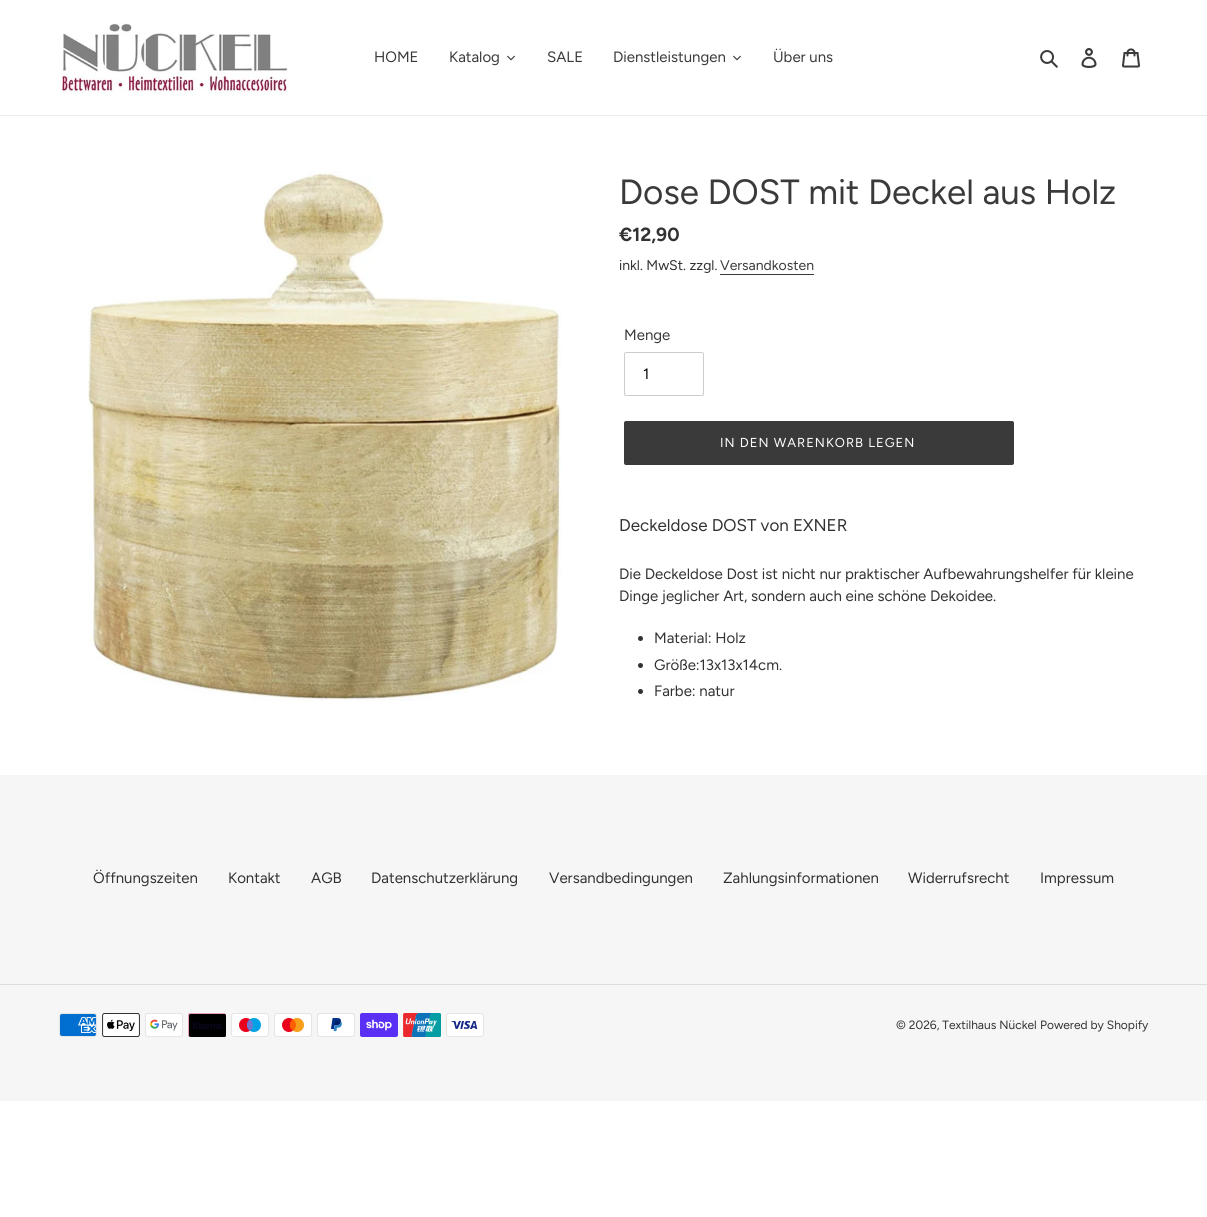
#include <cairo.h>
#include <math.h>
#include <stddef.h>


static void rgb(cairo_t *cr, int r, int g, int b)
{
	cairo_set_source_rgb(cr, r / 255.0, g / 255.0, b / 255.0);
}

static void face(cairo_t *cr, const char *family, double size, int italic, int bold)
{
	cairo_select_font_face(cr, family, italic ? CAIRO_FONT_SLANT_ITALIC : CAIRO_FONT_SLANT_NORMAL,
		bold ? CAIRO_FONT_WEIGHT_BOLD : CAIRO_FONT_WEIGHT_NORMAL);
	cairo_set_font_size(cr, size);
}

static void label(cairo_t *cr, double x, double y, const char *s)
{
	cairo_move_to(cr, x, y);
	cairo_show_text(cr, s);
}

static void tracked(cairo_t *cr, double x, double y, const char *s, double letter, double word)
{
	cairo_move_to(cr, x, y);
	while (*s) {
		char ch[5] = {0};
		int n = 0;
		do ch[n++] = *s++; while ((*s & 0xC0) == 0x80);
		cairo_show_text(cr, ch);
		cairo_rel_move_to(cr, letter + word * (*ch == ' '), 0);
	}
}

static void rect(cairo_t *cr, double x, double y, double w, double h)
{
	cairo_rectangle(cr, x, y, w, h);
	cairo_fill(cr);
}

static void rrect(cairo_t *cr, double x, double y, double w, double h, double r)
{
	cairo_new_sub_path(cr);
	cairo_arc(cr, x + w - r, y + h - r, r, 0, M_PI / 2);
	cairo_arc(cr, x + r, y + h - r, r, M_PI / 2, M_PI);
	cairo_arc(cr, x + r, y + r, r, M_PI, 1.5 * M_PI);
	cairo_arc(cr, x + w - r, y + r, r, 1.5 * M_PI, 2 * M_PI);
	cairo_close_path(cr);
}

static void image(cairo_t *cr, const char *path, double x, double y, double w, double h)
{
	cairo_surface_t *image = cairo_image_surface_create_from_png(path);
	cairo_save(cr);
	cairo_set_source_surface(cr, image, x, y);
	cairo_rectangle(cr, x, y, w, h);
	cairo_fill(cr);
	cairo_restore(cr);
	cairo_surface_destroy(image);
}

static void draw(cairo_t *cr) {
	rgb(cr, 255, 255, 255);
	cairo_paint(cr);
	rgb(cr, 235, 235, 235);
	rect(cr, 0, 115, 1207, 1);
	image(cr, "image0.png", 60, 23, 229, 72);
	face(cr, "Figtree", 15, 0, 0);
	rgb(cr, 58, 58, 58);
	label(cr, 374, 62, "HOME");
	label(cr, 449, 62, "Katalog");
	image(cr, "image1.png", 507, 55, 8, 6);
	label(cr, 547, 62, "SALE");
	label(cr, 613, 62, "Dienstleistungen");
	image(cr, "image1.png", 733, 55, 8, 6);
	label(cr, 773, 62, "Über uns");
	image(cr, "image2.png", 1040, 50, 18, 18);
	image(cr, "image3.png", 1081, 48, 16, 20);
	image(cr, "image4.png", 1122, 48, 18, 20);
	image(cr, "image5.png", 87, 171, 475, 530);
	face(cr, "Figtree", 35, 0, 0);
	label(cr, 619, 204, "Dose DOST mit Deckel aus Holz");
	face(cr, "Figtree", 19, 0, 1);
	rgb(cr, 51, 50, 50);
	label(cr, 619, 241, "€12,90");
	face(cr, "Figtree", 14, 0, 0);
	label(cr, 619, 270, "inkl. MwSt. zzgl.");
	rgb(cr, 58, 58, 58);
	label(cr, 720, 270, "Versandkosten");
	rect(cr, 720, 274, 94, 1);
	face(cr, "Figtree", 15, 0, 0);
	label(cr, 624, 340, "Menge");
	rrect(cr, 624.5, 352.5, 79, 43, 1.5);
	rgb(cr, 204, 204, 204);
	cairo_set_line_width(cr, 1);
	cairo_stroke(cr);
	rgb(cr, 0, 0, 0);
	label(cr, 643, 379, "1");
	rgb(cr, 58, 58, 58);
	rrect(cr, 624, 421, 390, 44, 2);
	cairo_fill(cr);
	face(cr, "Figtree", 13, 0, 0);
	rgb(cr, 255, 255, 255);
	tracked(cr, 720, 447, "IN DEN WARENKORB LEGEN", 1, 0);
	face(cr, "Figtree", 17, 0, 0);
	rgb(cr, 51, 50, 50);
	label(cr, 619, 531, "Deckeldose DOST von EXNER");
	face(cr, "Figtree", 15, 0, 0);
	label(cr, 619, 579, "Die Deckeldose Dost ist nicht nur praktischer Aufbewahrungshelfer für kleine");
	label(cr, 619, 601, "Dinge jeglicher Art, sondern auch eine schöne Dekoidee.");
	cairo_new_path(cr);
	cairo_arc(cr, 640.5, 638.5, 2.5, 0, 2 * M_PI);
	cairo_fill(cr);
	label(cr, 654, 643, "Material: Holz");
	cairo_new_path(cr);
	cairo_arc(cr, 640.5, 665.5, 2.5, 0, 2 * M_PI);
	cairo_fill(cr);
	label(cr, 654, 670, "Größe:13x13x14cm.");
	cairo_new_path(cr);
	cairo_arc(cr, 640.5, 691.5, 2.5, 0, 2 * M_PI);
	cairo_fill(cr);
	label(cr, 654, 696, "Farbe: natur");
	rgb(cr, 246, 246, 246);
	rect(cr, 0, 775, 1207, 326);
	rgb(cr, 51, 50, 50);
	label(cr, 93, 883, "Öffnungszeiten");
	label(cr, 228, 883, "Kontakt");
	label(cr, 311, 883, "AGB");
	label(cr, 371, 883, "Datenschutzerklärung");
	label(cr, 549, 883, "Versandbedingungen");
	label(cr, 723, 883, "Zahlungsinformationen");
	label(cr, 908, 883, "Widerrufsrecht");
	label(cr, 1040, 883, "Impressum");
	rgb(cr, 221, 221, 221);
	rect(cr, 0, 984, 1207, 1);
	image(cr, "image6.png", 59, 1013, 38, 24);
	image(cr, "image7.png", 102, 1013, 38, 24);
	image(cr, "image8.png", 145, 1013, 38, 24);
	image(cr, "image9.png", 188, 1013, 38, 24);
	image(cr, "image10.png", 231, 1013, 38, 24);
	image(cr, "image11.png", 274, 1013, 38, 24);
	image(cr, "image12.png", 317, 1013, 38, 24);
	image(cr, "image13.png", 360, 1013, 38, 24);
	image(cr, "image14.png", 403, 1013, 38, 24);
	image(cr, "image15.png", 446, 1013, 38, 24);
	face(cr, "Figtree", 12, 0, 0);
	rgb(cr, 51, 50, 50);
	label(cr, 896, 1029, "© 2026, Textilhaus Nückel");
	label(cr, 1040, 1029, "Powered by Shopify");
}

int main(void) {
	cairo_surface_t *surface = cairo_image_surface_create(CAIRO_FORMAT_RGB24, 1207, 1217);
	cairo_t *cr = cairo_create(surface);
	cairo_font_options_t *options = cairo_font_options_create();
	cairo_font_options_set_hint_metrics(options, CAIRO_HINT_METRICS_OFF);
	cairo_font_options_set_hint_style(options, CAIRO_HINT_STYLE_NONE);
	cairo_set_font_options(cr, options);
	cairo_set_miter_limit(cr, 4);
	draw(cr);
	cairo_surface_write_to_png(surface, "render.png");
	cairo_font_options_destroy(options);
	cairo_destroy(cr);
	cairo_surface_destroy(surface);
	return 0;
}
